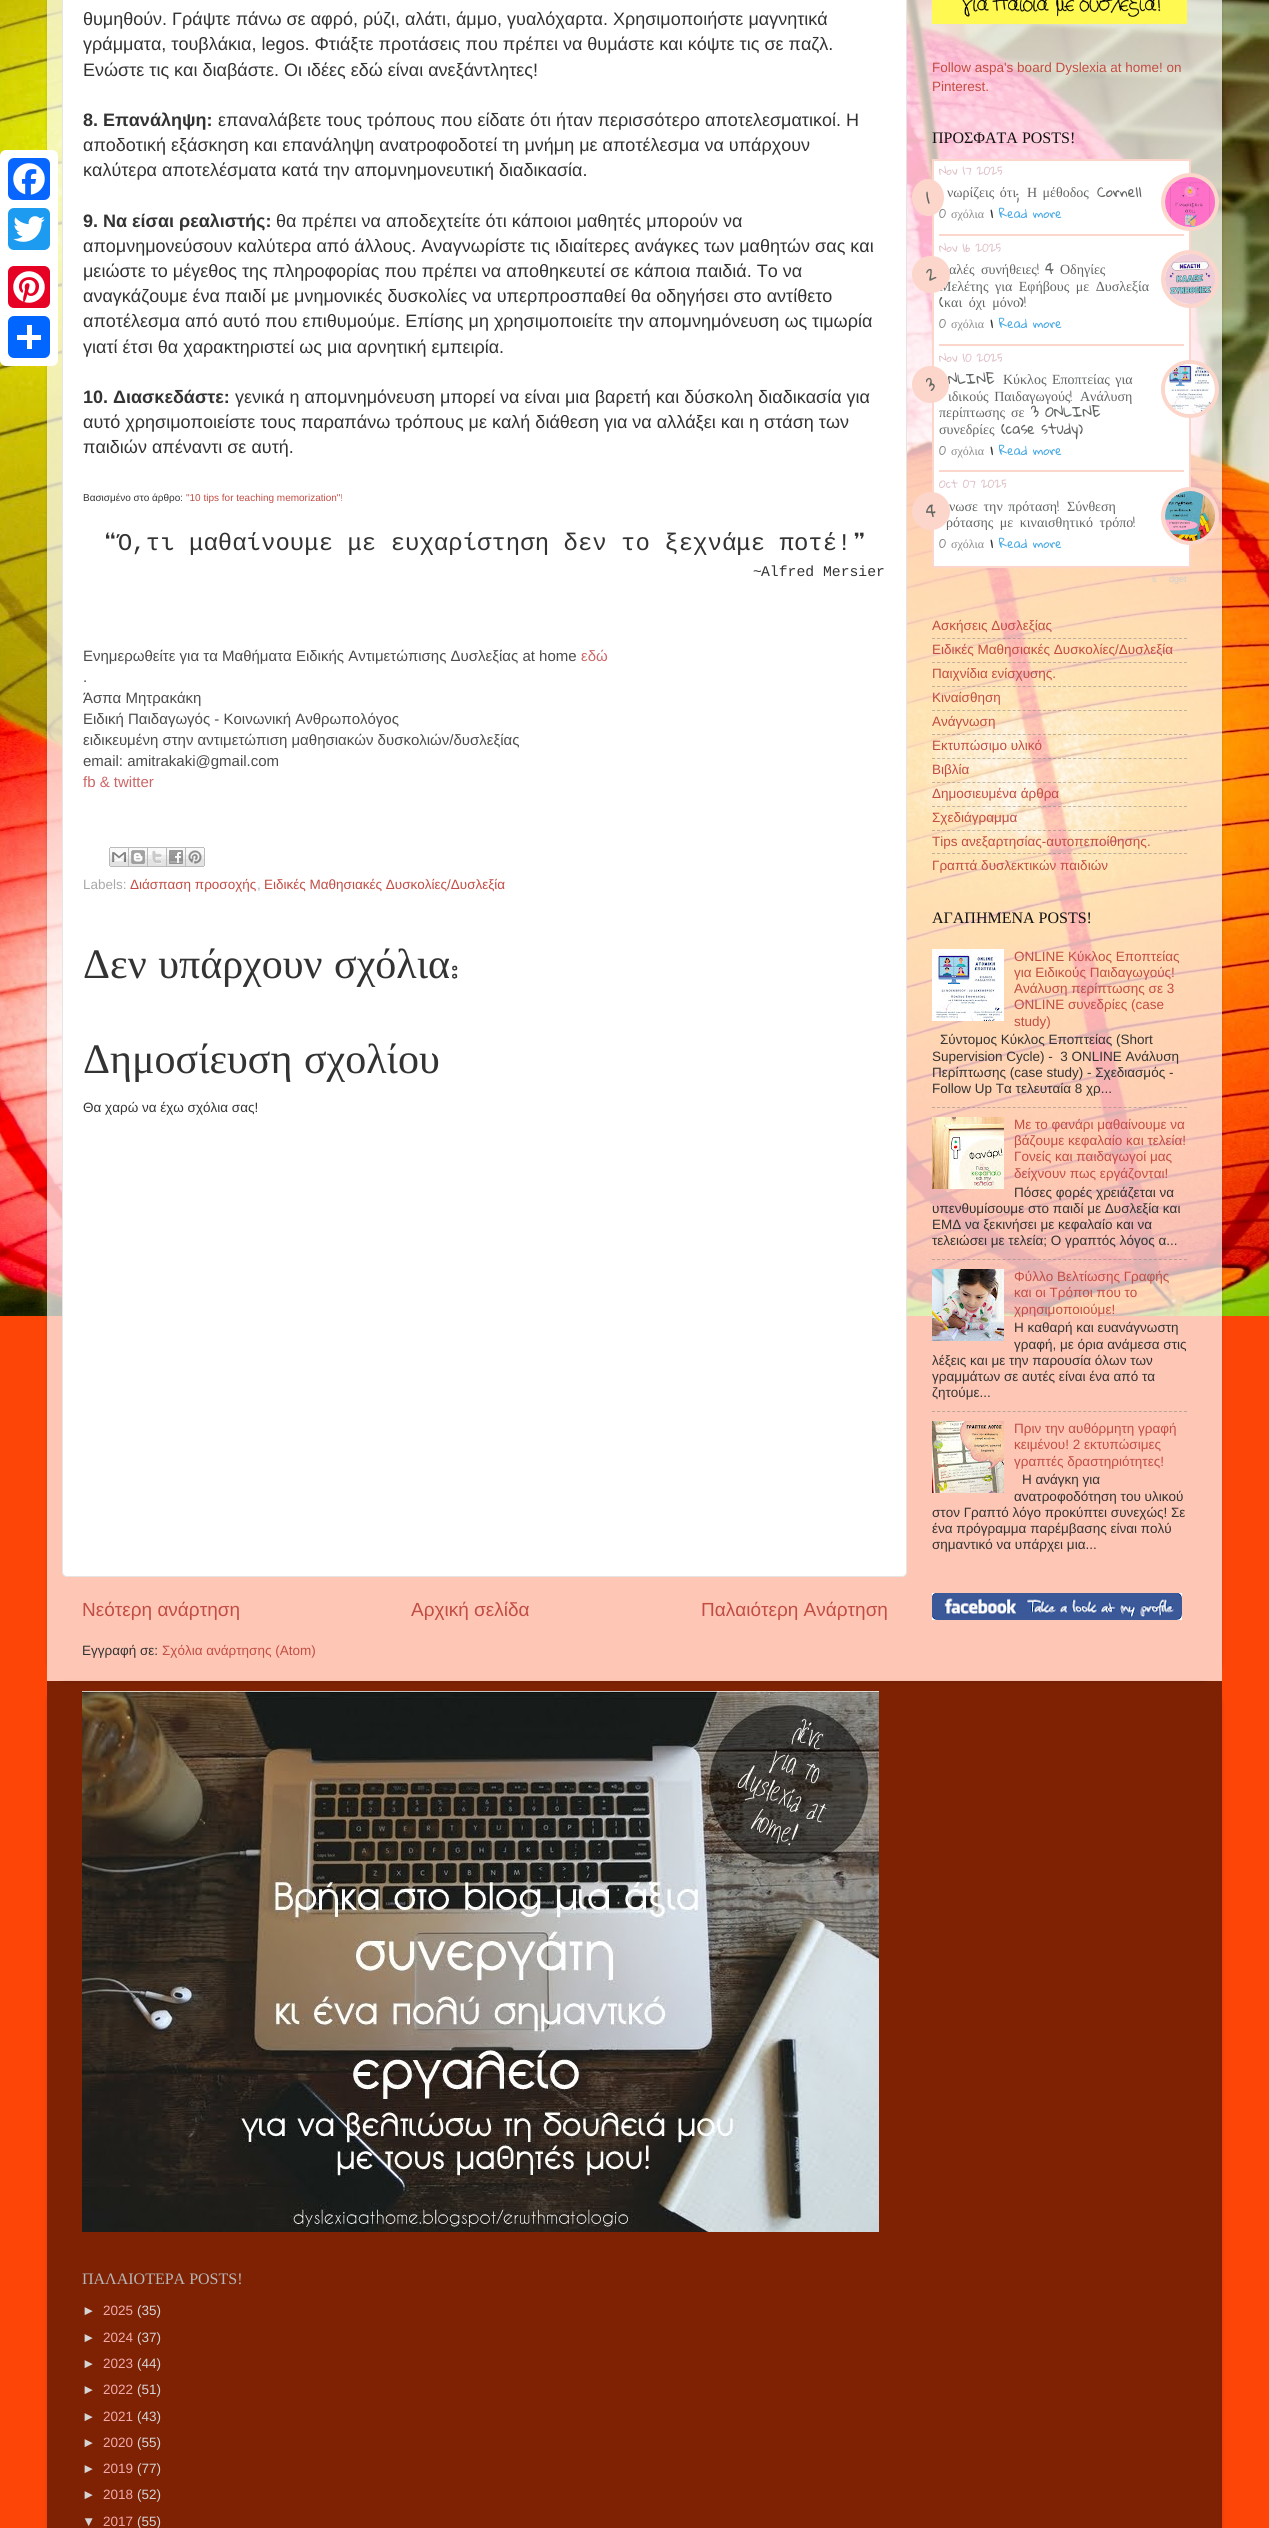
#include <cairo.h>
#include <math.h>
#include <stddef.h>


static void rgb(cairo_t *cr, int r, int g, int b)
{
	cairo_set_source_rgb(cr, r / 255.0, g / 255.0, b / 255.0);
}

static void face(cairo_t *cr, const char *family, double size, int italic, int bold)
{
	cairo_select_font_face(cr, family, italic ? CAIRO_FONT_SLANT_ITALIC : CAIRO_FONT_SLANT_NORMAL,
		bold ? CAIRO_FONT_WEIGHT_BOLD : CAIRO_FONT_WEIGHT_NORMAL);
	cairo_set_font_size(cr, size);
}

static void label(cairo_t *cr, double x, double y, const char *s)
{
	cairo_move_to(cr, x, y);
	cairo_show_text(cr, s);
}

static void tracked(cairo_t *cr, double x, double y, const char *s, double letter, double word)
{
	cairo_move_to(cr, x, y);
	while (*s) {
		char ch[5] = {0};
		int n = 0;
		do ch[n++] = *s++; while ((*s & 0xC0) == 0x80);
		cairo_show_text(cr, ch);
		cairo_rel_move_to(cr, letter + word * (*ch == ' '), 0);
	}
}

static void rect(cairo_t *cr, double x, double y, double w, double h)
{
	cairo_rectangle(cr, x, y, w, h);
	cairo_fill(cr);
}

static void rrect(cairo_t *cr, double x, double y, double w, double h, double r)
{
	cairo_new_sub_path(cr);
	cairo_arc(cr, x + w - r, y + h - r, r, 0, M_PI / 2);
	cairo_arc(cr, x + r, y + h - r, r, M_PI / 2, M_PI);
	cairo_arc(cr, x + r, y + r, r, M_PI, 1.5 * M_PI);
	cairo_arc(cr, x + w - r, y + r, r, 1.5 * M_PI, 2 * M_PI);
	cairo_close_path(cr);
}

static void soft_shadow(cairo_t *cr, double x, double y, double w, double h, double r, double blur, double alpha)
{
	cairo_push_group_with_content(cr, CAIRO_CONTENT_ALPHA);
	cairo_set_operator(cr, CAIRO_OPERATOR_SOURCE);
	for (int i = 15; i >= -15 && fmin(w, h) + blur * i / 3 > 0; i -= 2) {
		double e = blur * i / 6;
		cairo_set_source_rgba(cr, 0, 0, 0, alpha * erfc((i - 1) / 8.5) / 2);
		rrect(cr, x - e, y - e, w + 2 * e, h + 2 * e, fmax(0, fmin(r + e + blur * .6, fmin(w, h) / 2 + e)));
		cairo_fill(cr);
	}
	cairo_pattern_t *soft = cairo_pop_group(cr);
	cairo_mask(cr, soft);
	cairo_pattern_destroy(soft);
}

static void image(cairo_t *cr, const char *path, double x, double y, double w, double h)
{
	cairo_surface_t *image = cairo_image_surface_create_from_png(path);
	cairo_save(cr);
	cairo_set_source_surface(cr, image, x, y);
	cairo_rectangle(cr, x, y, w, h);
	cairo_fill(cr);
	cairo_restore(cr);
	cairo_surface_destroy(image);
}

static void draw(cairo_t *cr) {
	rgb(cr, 253, 69, 7);
	cairo_paint(cr);
	rgb(cr, 254, 199, 181);
	rect(cr, 47, 1316, 1175, 365);
	image(cr, "image0.png", 0, 0, 1269, 1316);
	cairo_save(cr);
	cairo_set_fill_rule(cr, CAIRO_FILL_RULE_EVEN_ODD);
	cairo_new_path(cr);
	cairo_move_to(cr, 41, 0);
	cairo_line_to(cr, 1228, 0);
	cairo_line_to(cr, 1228, 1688);
	cairo_line_to(cr, 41, 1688);
	cairo_close_path(cr);
	cairo_move_to(cr, 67, -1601);
	cairo_line_to(cr, 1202, -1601);
	cairo_curve_to(cr, 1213, -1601, 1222, -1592, 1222, -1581);
	cairo_line_to(cr, 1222, 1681);
	cairo_line_to(cr, 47, 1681);
	cairo_line_to(cr, 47, -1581);
	cairo_curve_to(cr, 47, -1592, 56, -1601, 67, -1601);
	cairo_close_path(cr);
	cairo_clip(cr);
	rgb(cr, 0, 0, 0);
	soft_shadow(cr, 47, -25, 1175, 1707, 20, 1.5, 0.15);
	cairo_restore(cr);
	rgb(cr, 255, 255, 255);
	rrect(cr, 62.5, -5.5, 844, 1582, 4.5);
	cairo_fill_preserve(cr);
	rgb(cr, 229, 229, 229);
	cairo_set_line_width(cr, 1);
	cairo_stroke(cr);
	face(cr, "Liberation Sans", 18, 0, 0);
	rgb(cr, 51, 51, 51);
	label(cr, 83, 25, "θυμηθούν. Γράψτε πάνω σε αφρό, ρύζι, αλάτι, άμμο, γυαλόχαρτα. Χρησιμοποιήστε μαγνητικά");
	label(cr, 83, 50, "γράμματα, τουβλάκια, legos. Φτιάξτε προτάσεις που πρέπει να θυμάστε και κόψτε τις σε παζλ.");
	label(cr, 83, 76, "Ενώστε τις και διαβάστε. Οι ιδέες εδώ είναι ανεξάντλητες!");
	face(cr, "Liberation Sans", 18, 0, 1);
	label(cr, 83, 126, "8. Επανάληψη:");
	face(cr, "Liberation Sans", 18, 0, 0);
	label(cr, 218, 126, "επαναλάβετε τους τρόπους που είδατε ότι ήταν περισσότερο αποτελεσματικοί. Η");
	label(cr, 83, 151, "αποδοτική εξάσκηση και επανάληψη ανατροφοδοτεί τη μνήμη με αποτέλεσμα να υπάρχουν");
	label(cr, 83, 176, "καλύτερα αποτελέσματα κατά την απομνημονευτική διαδικασία.");
	face(cr, "Liberation Sans", 18, 0, 1);
	label(cr, 83, 227, "9. Να είσαι ρεαλιστής:");
	face(cr, "Liberation Sans", 18, 0, 0);
	label(cr, 276, 227, "θα πρέπει να αποδεχτείτε ότι κάποιοι μαθητές μπορούν να");
	label(cr, 83, 252, "απομνημονεύσουν καλύτερα από άλλους. Αναγνωρίστε τις ιδιαίτερες ανάγκες των μαθητών σας και");
	label(cr, 83, 277, "μειώστε το μέγεθος της πληροφορίας που πρέπει να αποθηκευτεί σε κάποια παιδιά. Το να");
	label(cr, 83, 302, "αναγκάζουμε ένα παιδί με μνημονικές δυσκολίες να υπερπροσπαθεί θα οδηγήσει στο αντίθετο");
	label(cr, 83, 327, "αποτέλεσμα από αυτό που επιθυμούμε. Επίσης μη χρησιμοποιείτε την απομνημόνευση ως τιμωρία");
	label(cr, 83, 353, "γιατί έτσι θα χαρακτηριστεί ως μια αρνητική εμπειρία.");
	face(cr, "Liberation Sans", 18, 0, 1);
	label(cr, 83, 403, "10. Διασκεδάστε:");
	face(cr, "Liberation Sans", 18, 0, 0);
	label(cr, 235, 403, "γενικά η απομνημόνευση μπορεί να είναι μια βαρετή και δύσκολη διαδικασία για");
	label(cr, 83, 428, "αυτό χρησιμοποιείστε τους παραπάνω τρόπους με καλή διάθεση για να αλλάξει και η στάση των");
	label(cr, 83, 453, "παιδιών απέναντι σε αυτή.");
	face(cr, "Liberation Sans", 10, 0, 0);
	label(cr, 83, 501, "Βασισμένο στο άρθρο:");
	rgb(cr, 193, 77, 68);
	label(cr, 186, 501, "\"10 tips for teaching memorization\"!");
	face(cr, "DejaVu Sans Mono", 24, 0, 0);
	rgb(cr, 51, 51, 51);
	label(cr, 103, 550, "❝");
	face(cr, "Liberation Mono", 24, 0, 0);
	label(cr, 117, 550, "Ό,τι μαθαίνουμε με ευχαρίστηση δεν το ξεχνάμε ποτέ!");
	face(cr, "DejaVu Sans Mono", 24, 0, 0);
	label(cr, 852, 550, "❞");
	face(cr, "Liberation Sans", 14.75, 0, 0);
	label(cr, 753, 576, "~");
	face(cr, "Liberation Mono", 14.75, 0, 0);
	label(cr, 761, 576, "Alfred Mersier");
	face(cr, "Liberation Sans", 15, 0, 0);
	rgb(cr, 76, 76, 76);
	label(cr, 83, 661, "Ενημερωθείτε για τα Μαθήματα Ειδικής Αντιμετώπισης Δυσλεξίας at home");
	rgb(cr, 204, 102, 102);
	label(cr, 581, 661, "εδώ");
	rgb(cr, 76, 76, 76);
	label(cr, 83, 682, ".");
	label(cr, 83, 703, "Άσπα Μητρακάκη");
	label(cr, 83, 724, "Ειδική Παιδαγωγός - Κοινωνική Ανθρωπολόγος");
	label(cr, 83, 745, "ειδικευμένη στην αντιμετώπιση μαθησιακών δυσκολιών/δυσλεξίας");
	label(cr, 83, 766, "email: amitrakaki@gmail.com");
	rgb(cr, 204, 102, 102);
	label(cr, 83, 787, "fb & twitter");
	image(cr, "image1.png", 109, 847, 20, 20);
	image(cr, "image2.png", 129, 847, 19, 20);
	image(cr, "image3.png", 148, 847, 19, 20);
	image(cr, "image4.png", 167, 847, 19, 20);
	image(cr, "image5.png", 186, 847, 19, 20);
	face(cr, "Liberation Sans", 13.5, 0, 0);
	rgb(cr, 168, 168, 168);
	label(cr, 83, 889, "Labels:");
	rgb(cr, 193, 77, 68);
	label(cr, 130, 889, "Διάσπαση προσοχής");
	rgb(cr, 168, 168, 168);
	label(cr, 257, 889, ",");
	rgb(cr, 193, 77, 68);
	label(cr, 264, 889, "Ειδικές Μαθησιακές Δυσκολίες/Δυσλεξία");
	face(cr, "Liberation Serif", 42, 0, 0);
	rgb(cr, 51, 51, 51);
	tracked(cr, 83, 978, "Δεν υπάρχουν σχόλια", 0, 1);
	face(cr, "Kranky", 42, 0, 0);
	label(cr, 451, 978, ":");
	face(cr, "Liberation Serif", 42, 0, 0);
	tracked(cr, 83, 1073, "Δημοσίευση σχολίου", 0, 1);
	face(cr, "Liberation Sans", 13.5, 0, 0);
	label(cr, 83, 1112, "Θα χαρώ να έχω σχόλια σας!");
	face(cr, "Liberation Sans", 19, 0, 0);
	rgb(cr, 193, 77, 68);
	label(cr, 82, 1616, "Νεότερη ανάρτηση");
	label(cr, 411, 1616, "Αρχική σελίδα");
	label(cr, 701, 1616, "Παλαιότερη Ανάρτηση");
	face(cr, "Liberation Sans", 13.5, 0, 0);
	rgb(cr, 51, 51, 51);
	label(cr, 82, 1655, "Εγγραφή σε:");
	rgb(cr, 193, 77, 68);
	label(cr, 162, 1655, "Σχόλια ανάρτησης (Atom)");
	image(cr, "image6.png", 932, 0, 255, 24);
	label(cr, 932, 72, "Follow aspa's board Dyslexia at home! on");
	label(cr, 932, 91, "Pinterest.");
	rgb(cr, 255, 255, 255);
	rrect(cr, 0, 150, 58, 216, 6);
	cairo_fill(cr);
	rgb(cr, 8, 102, 255);
	rrect(cr, 8, 158, 42, 42, 6);
	cairo_fill(cr);
	image(cr, "image7.png", 13, 163, 32, 32);
	rgb(cr, 29, 155, 240);
	rrect(cr, 8, 208, 42, 42, 6);
	cairo_fill(cr);
	image(cr, "image8.png", 13, 216, 32, 26);
	rgb(cr, 230, 0, 35);
	rrect(cr, 8, 266, 42, 42, 6);
	cairo_fill(cr);
	image(cr, "image9.png", 13, 271, 32, 32);
	rgb(cr, 1, 102, 255);
	rrect(cr, 8, 316, 42, 42, 6);
	cairo_fill(cr);
	rgb(cr, 255, 255, 255);
	rect(cr, 27, 325, 5, 24);
	rect(cr, 17, 335, 24, 5);
	face(cr, "Liberation Serif", 16, 0, 0);
	rgb(cr, 17, 17, 17);
	label(cr, 932, 143, "ΠΡΟΣΦΑΤΑ POSTS!");
	rgb(cr, 255, 255, 255);
	cairo_rectangle(cr, 933, 160, 257, 407);
	cairo_fill_preserve(cr);
	rgb(cr, 252, 214, 203);
	cairo_set_line_width(cr, 2);
	cairo_stroke(cr);
	face(cr, "Gloria Hallelujah", 11, 0, 0);
	rgb(cr, 224, 192, 198);
	label(cr, 939, 175, "Nov 17 2025");
	face(cr, "Gloria Hallelujah", 12, 0, 0);
	rgb(cr, 136, 136, 136);
	label(cr, 939, 218, "0");
	rgb(cr, 252, 214, 203);
	cairo_new_path(cr);
	cairo_move_to(cr, 928, 179);
	cairo_curve_to(cr, 937, 179, 944, 187.5, 944, 197.5);
	cairo_curve_to(cr, 944, 207.5, 937, 216, 928, 216);
	cairo_curve_to(cr, 919, 216, 912, 207.5, 912, 197.5);
	cairo_curve_to(cr, 912, 187.5, 919, 179, 928, 179);
	cairo_close_path(cr);
	cairo_fill(cr);
	face(cr, "Gloria Hallelujah", 16, 0, 0);
	rgb(cr, 97, 102, 98);
	label(cr, 926, 204, "1");
	face(cr, "Liberation Serif", 14, 0, 0);
	tracked(cr, 947, 197, "νωρίζεις ότι", 0, 2);
	face(cr, "Gloria Hallelujah", 14, 0, 0);
	label(cr, 1016, 197, ";");
	face(cr, "Liberation Serif", 14, 0, 0);
	tracked(cr, 1027, 197, "Η μέθοδος", 0, 2);
	face(cr, "Gloria Hallelujah", 14, 0, 0);
	label(cr, 1097, 197, "Cornell");
	cairo_new_path(cr);
	cairo_arc(cr, 1190, 202, 27, 0, 2 * M_PI);
	rgb(cr, 252, 214, 203);
	cairo_set_line_width(cr, 4);
	cairo_stroke(cr);
	image(cr, "image10.png", 1165, 177, 50, 50);
	face(cr, "Liberation Serif", 12, 0, 0);
	rgb(cr, 136, 136, 136);
	label(cr, 951, 218, "σχόλια");
	face(cr, "Gloria Hallelujah", 12, 0, 0);
	rgb(cr, 51, 51, 51);
	label(cr, 990, 218, "|");
	rgb(cr, 77, 172, 227);
	label(cr, 999, 218, "Read more");
	rgb(cr, 252, 214, 203);
	rect(cr, 939, 234, 245, 2);
	face(cr, "Gloria Hallelujah", 11, 0, 0);
	rgb(cr, 224, 192, 198);
	label(cr, 939, 252, "Nov 16 2025");
	face(cr, "Liberation Serif", 14, 0, 0);
	rgb(cr, 97, 102, 98);
	label(cr, 949, 274, "αλές");
	tracked(cr, 939, 291, "Μελέτης για Εφήβους με Δυσλεξία", 0, 3);
	rgb(cr, 252, 214, 203);
	rrect(cr, 912, 256, 38, 37, 18.5);
	cairo_fill(cr);
	face(cr, "Gloria Hallelujah", 16, 0, 0);
	rgb(cr, 97, 102, 98);
	label(cr, 926, 281, "2");
	face(cr, "Liberation Serif", 14, 0, 0);
	label(cr, 981, 274, "συνήθειες");
	face(cr, "Gloria Hallelujah", 14, 0, 0);
	label(cr, 1037, 274, "! 4");
	face(cr, "Liberation Serif", 14, 0, 0);
	label(cr, 1060, 274, "Οδηγίες");
	face(cr, "Gloria Hallelujah", 14, 0, 0);
	label(cr, 939, 307, "(");
	face(cr, "Liberation Serif", 14, 0, 0);
	tracked(cr, 944, 307, "και όχι μόνο", 0, 3);
	face(cr, "Gloria Hallelujah", 14, 0, 0);
	label(cr, 1019, 307, ")!");
	cairo_new_path(cr);
	cairo_arc(cr, 1190, 279, 27, 0, 2 * M_PI);
	rgb(cr, 252, 214, 203);
	cairo_stroke(cr);
	image(cr, "image11.png", 1165, 254, 50, 50);
	face(cr, "Gloria Hallelujah", 12, 0, 0);
	rgb(cr, 136, 136, 136);
	label(cr, 939, 328, "0");
	face(cr, "Liberation Serif", 12, 0, 0);
	label(cr, 951, 328, "σχόλια");
	face(cr, "Gloria Hallelujah", 12, 0, 0);
	rgb(cr, 51, 51, 51);
	label(cr, 990, 328, "|");
	rgb(cr, 77, 172, 227);
	label(cr, 999, 328, "Read more");
	rgb(cr, 252, 214, 203);
	rect(cr, 939, 344, 245, 2);
	face(cr, "Gloria Hallelujah", 11, 0, 0);
	rgb(cr, 224, 192, 198);
	label(cr, 939, 362, "Nov 10 2025");
	face(cr, "Gloria Hallelujah", 14, 0, 0);
	rgb(cr, 97, 102, 98);
	label(cr, 948, 384, "NLINE");
	face(cr, "Liberation Serif", 14, 0, 0);
	tracked(cr, 948, 401, "ιδικούς Παιδαγωγούς", 0, 2);
	rgb(cr, 252, 214, 203);
	cairo_new_path(cr);
	cairo_arc(cr, 930.5, 384.5, 18.5, 0, 2 * M_PI);
	cairo_fill(cr);
	face(cr, "Gloria Hallelujah", 16, 0, 0);
	rgb(cr, 97, 102, 98);
	label(cr, 926, 391, "3");
	face(cr, "Liberation Serif", 14, 0, 0);
	tracked(cr, 1003, 384, "Κύκλος Εποπτείας για", 0, 2);
	face(cr, "Gloria Hallelujah", 14, 0, 0);
	label(cr, 1070, 401, "!");
	face(cr, "Liberation Serif", 14, 0, 0);
	label(cr, 1080, 401, "Ανάλυση");
	label(cr, 939, 417, "περίπτωσης");
	label(cr, 1011, 417, "σε");
	face(cr, "Gloria Hallelujah", 14, 0, 0);
	label(cr, 1031, 417, "3 ONLINE");
	face(cr, "Liberation Serif", 14, 0, 0);
	label(cr, 939, 434, "συνεδρίες");
	face(cr, "Gloria Hallelujah", 14, 0, 0);
	label(cr, 1001, 434, "(case study)");
	cairo_new_path(cr);
	cairo_arc(cr, 1190, 389, 27, 0, 2 * M_PI);
	rgb(cr, 252, 214, 203);
	cairo_stroke(cr);
	image(cr, "image12.png", 1165, 364, 50, 50);
	face(cr, "Gloria Hallelujah", 12, 0, 0);
	rgb(cr, 136, 136, 136);
	label(cr, 939, 455, "0");
	face(cr, "Liberation Serif", 12, 0, 0);
	label(cr, 951, 455, "σχόλια");
	face(cr, "Gloria Hallelujah", 12, 0, 0);
	rgb(cr, 51, 51, 51);
	label(cr, 990, 455, "|");
	rgb(cr, 77, 172, 227);
	label(cr, 999, 455, "Read more");
	rgb(cr, 252, 214, 203);
	rect(cr, 939, 470, 245, 2);
	face(cr, "Gloria Hallelujah", 11, 0, 0);
	rgb(cr, 224, 192, 198);
	label(cr, 939, 488, "Oct 07 2025");
	face(cr, "Liberation Serif", 14, 0, 0);
	rgb(cr, 97, 102, 98);
	tracked(cr, 949, 511, "νωσε την πρόταση", 0, 2);
	tracked(cr, 946, 527, "ρότασης με κιναισθητικό τρόπο", 0, 3);
	rgb(cr, 252, 214, 203);
	cairo_new_path(cr);
	cairo_arc(cr, 931, 511, 19, 0, 2 * M_PI);
	cairo_fill(cr);
	face(cr, "Gloria Hallelujah", 16, 0, 0);
	rgb(cr, 97, 102, 98);
	label(cr, 926, 517, "4");
	face(cr, "Gloria Hallelujah", 14, 0, 0);
	label(cr, 1057, 511, "!");
	face(cr, "Liberation Serif", 14, 0, 0);
	label(cr, 1067, 511, "Σύνθεση");
	face(cr, "Gloria Hallelujah", 14, 0, 0);
	label(cr, 1133, 527, "!");
	cairo_new_path(cr);
	cairo_arc(cr, 1190, 516, 27, 0, 2 * M_PI);
	rgb(cr, 252, 214, 203);
	cairo_stroke(cr);
	image(cr, "image13.png", 1165, 491, 50, 50);
	face(cr, "Gloria Hallelujah", 12, 0, 0);
	rgb(cr, 136, 136, 136);
	label(cr, 939, 548, "0");
	face(cr, "Liberation Serif", 12, 0, 0);
	label(cr, 951, 548, "σχόλια");
	face(cr, "Gloria Hallelujah", 12, 0, 0);
	rgb(cr, 51, 51, 51);
	label(cr, 990, 548, "|");
	rgb(cr, 77, 172, 227);
	label(cr, 999, 548, "Read more");
	face(cr, "Liberation Sans", 9, 0, 0);
	rgb(cr, 206, 206, 206);
	label(cr, 1152, 582, "s");
	label(cr, 1169, 582, "dget");
	face(cr, "Liberation Sans", 13.5, 0, 0);
	rgb(cr, 193, 77, 68);
	label(cr, 932, 630, "Ασκήσεις Δυσλεξίας");
	cairo_new_path(cr);
	cairo_move_to(cr, 932, 638.5);
	cairo_line_to(cr, 1187, 638.5);
	cairo_set_source_rgba(cr, 0.502, 0.502, 0.502, 0.5);
	cairo_set_line_width(cr, 1);
	cairo_set_dash(cr, (double[]){3, 2.04}, 2, 0);
	cairo_stroke(cr);
	rgb(cr, 193, 77, 68);
	label(cr, 932, 654, "Ειδικές Μαθησιακές Δυσκολίες/Δυσλεξία");
	cairo_new_path(cr);
	cairo_move_to(cr, 932, 662.5);
	cairo_line_to(cr, 1187, 662.5);
	cairo_set_source_rgba(cr, 0.502, 0.502, 0.502, 0.5);
	cairo_stroke(cr);
	rgb(cr, 193, 77, 68);
	label(cr, 932, 678, "Παιχνίδια ενίσχυσης.");
	cairo_new_path(cr);
	cairo_move_to(cr, 932, 686.5);
	cairo_line_to(cr, 1187, 686.5);
	cairo_set_source_rgba(cr, 0.502, 0.502, 0.502, 0.5);
	cairo_stroke(cr);
	rgb(cr, 193, 77, 68);
	label(cr, 932, 702, "Κιναίσθηση");
	cairo_new_path(cr);
	cairo_move_to(cr, 932, 710.5);
	cairo_line_to(cr, 1187, 710.5);
	cairo_set_source_rgba(cr, 0.502, 0.502, 0.502, 0.5);
	cairo_stroke(cr);
	rgb(cr, 193, 77, 68);
	label(cr, 932, 726, "Ανάγνωση");
	cairo_new_path(cr);
	cairo_move_to(cr, 932, 734.5);
	cairo_line_to(cr, 1187, 734.5);
	cairo_set_source_rgba(cr, 0.502, 0.502, 0.502, 0.5);
	cairo_stroke(cr);
	rgb(cr, 193, 77, 68);
	label(cr, 932, 750, "Εκτυπώσιμο υλικό");
	cairo_new_path(cr);
	cairo_move_to(cr, 932, 758.5);
	cairo_line_to(cr, 1187, 758.5);
	cairo_set_source_rgba(cr, 0.502, 0.502, 0.502, 0.5);
	cairo_stroke(cr);
	rgb(cr, 193, 77, 68);
	label(cr, 932, 774, "Βιβλία");
	cairo_new_path(cr);
	cairo_move_to(cr, 932, 782.5);
	cairo_line_to(cr, 1187, 782.5);
	cairo_set_source_rgba(cr, 0.502, 0.502, 0.502, 0.5);
	cairo_stroke(cr);
	rgb(cr, 193, 77, 68);
	label(cr, 932, 798, "Δημοσιευμένα άρθρα");
	cairo_new_path(cr);
	cairo_move_to(cr, 932, 806.5);
	cairo_line_to(cr, 1187, 806.5);
	cairo_set_source_rgba(cr, 0.502, 0.502, 0.502, 0.5);
	cairo_stroke(cr);
	rgb(cr, 193, 77, 68);
	label(cr, 932, 822, "Σχεδιάγραμμα");
	cairo_new_path(cr);
	cairo_move_to(cr, 932, 830.5);
	cairo_line_to(cr, 1187, 830.5);
	cairo_set_source_rgba(cr, 0.502, 0.502, 0.502, 0.5);
	cairo_stroke(cr);
	rgb(cr, 193, 77, 68);
	label(cr, 932, 846, "Tips ανεξαρτησίας-αυτοπεποίθησης.");
	cairo_new_path(cr);
	cairo_move_to(cr, 932, 853.5);
	cairo_line_to(cr, 1187, 853.5);
	cairo_set_source_rgba(cr, 0.502, 0.502, 0.502, 0.5);
	cairo_stroke(cr);
	rgb(cr, 193, 77, 68);
	label(cr, 932, 870, "Γραπτά δυσλεκτικών παιδιών");
	face(cr, "Liberation Serif", 16, 0, 0);
	rgb(cr, 17, 17, 17);
	label(cr, 932, 923, "ΑΓΑΠΗΜΕΝΑ POSTS!");
	image(cr, "image14.png", 932, 949, 72, 72);
	face(cr, "Liberation Sans", 13.5, 0, 0);
	rgb(cr, 193, 77, 68);
	label(cr, 1014, 961, "ONLINE Κύκλος Εποπτείας");
	label(cr, 1014, 977, "για Ειδικούς Παιδαγωγούς!");
	label(cr, 1014, 993, "Ανάλυση περίπτωσης σε 3");
	label(cr, 1014, 1009, "ONLINE συνεδρίες (case");
	label(cr, 1014, 1026, "study)");
	rgb(cr, 51, 51, 51);
	label(cr, 940, 1044, "Σύντομος Κύκλος Εποπτείας (Short");
	label(cr, 932, 1061, "Supervision Cycle) -  3 ONLINE Ανάλυση");
	label(cr, 932, 1077, "Περίπτωσης (case study) - Σχεδιασμός -");
	label(cr, 932, 1093, "Follow Up Τα τελευταία 8 χρ...");
	cairo_new_path(cr);
	cairo_move_to(cr, 932, 1107.5);
	cairo_line_to(cr, 1187, 1107.5);
	cairo_set_source_rgba(cr, 0.502, 0.502, 0.502, 0.5);
	cairo_stroke(cr);
	image(cr, "image15.png", 932, 1117, 72, 72);
	rgb(cr, 193, 77, 68);
	label(cr, 1014, 1129, "Με το φανάρι μαθαίνουμε να");
	label(cr, 1014, 1145, "βάζουμε κεφαλαίο και τελεία!");
	label(cr, 1014, 1161, "Γονείς και παιδαγωγοί μας");
	label(cr, 1014, 1178, "δείχνουν πως εργάζονται!");
	rgb(cr, 51, 51, 51);
	label(cr, 1014, 1197, "Πόσες φορές χρειάζεται να");
	label(cr, 932, 1213, "υπενθυμίσουμε στο παιδί με Δυσλεξία και");
	label(cr, 932, 1229, "ΕΜΔ να ξεκινήσει με κεφαλαίο και να");
	label(cr, 932, 1245, "τελειώσει με τελεία; Ο γραπτός λόγος α...");
	cairo_new_path(cr);
	cairo_move_to(cr, 932, 1259.5);
	cairo_line_to(cr, 1187, 1259.5);
	cairo_set_source_rgba(cr, 0.502, 0.502, 0.502, 0.5);
	cairo_stroke(cr);
	image(cr, "image16.png", 932, 1269, 72, 72);
	rgb(cr, 193, 77, 68);
	label(cr, 1014, 1281, "Φύλλο Βελτίωσης Γραφής");
	label(cr, 1014, 1297, "και οι Τρόποι που το");
	label(cr, 1014, 1314, "χρησιμοποιούμε!");
	rgb(cr, 51, 51, 51);
	label(cr, 1014, 1332, "Η καθαρή και ευανάγνωστη");
	label(cr, 1014, 1349, "γραφή, με όρια ανάμεσα στις");
	label(cr, 932, 1365, "λέξεις και με την παρουσία όλων των");
	label(cr, 932, 1381, "γραμμάτων σε αυτές είναι ένα από τα");
	label(cr, 932, 1397, "ζητούμε...");
	cairo_new_path(cr);
	cairo_move_to(cr, 932, 1411.5);
	cairo_line_to(cr, 1187, 1411.5);
	rgb(cr, 191, 164, 154);
	cairo_stroke(cr);
	image(cr, "image17.png", 932, 1421, 72, 72);
	rgb(cr, 193, 77, 68);
	label(cr, 1014, 1433, "Πριν την αυθόρμητη γραφή");
	label(cr, 1014, 1449, "κειμένου! 2 εκτυπώσιμες");
	label(cr, 1014, 1466, "γραπτές δραστηριότητες!");
	rgb(cr, 51, 51, 51);
	label(cr, 1022, 1484, "Η ανάγκη για");
	label(cr, 1014, 1501, "ανατροφοδότηση του υλικού");
	label(cr, 932, 1517, "στον Γραπτό λόγο προκύπτει συνεχώς! Σε");
	label(cr, 932, 1533, "ένα πρόγραμμα παρέμβασης είναι πολύ");
	label(cr, 932, 1549, "σημαντικό να υπάρχει μια...");
	image(cr, "image18.png", 932, 1593, 250, 27);
	cairo_save(cr);
	cairo_set_fill_rule(cr, CAIRO_FILL_RULE_EVEN_ODD);
	cairo_new_path(cr);
	cairo_move_to(cr, 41, 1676);
	cairo_line_to(cr, 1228, 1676);
	cairo_line_to(cr, 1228, 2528);
	cairo_line_to(cr, 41, 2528);
	cairo_close_path(cr);
	cairo_move_to(cr, 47, 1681);
	cairo_line_to(cr, 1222, 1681);
	cairo_line_to(cr, 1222, 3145);
	cairo_curve_to(cr, 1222, 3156, 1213, 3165, 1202, 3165);
	cairo_line_to(cr, 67, 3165);
	cairo_curve_to(cr, 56, 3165, 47, 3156, 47, 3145);
	cairo_close_path(cr);
	cairo_clip(cr);
	rgb(cr, 0, 0, 0);
	soft_shadow(cr, 47, 1682, 1175, 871, 20, 1.5, 0.15);
	cairo_restore(cr);
	cairo_set_source_rgba(cr, 0, 0, 0, 0.5);
	rect(cr, 47, 1681, 1175, 847);
	image(cr, "image19.png", 82, 1691, 797, 541);
	face(cr, "Liberation Serif", 16, 0, 0);
	rgb(cr, 182, 182, 182);
	label(cr, 82, 2284, "ΠΑΛΑΙΟΤΕΡΑ POSTS!");
	face(cr, "Liberation Sans", 13.5, 0, 0);
	rgb(cr, 213, 213, 213);
	label(cr, 82, 2315, "►");
	rgb(cr, 241, 169, 171);
	label(cr, 103, 2315, "2025");
	rgb(cr, 213, 213, 213);
	label(cr, 137, 2315, "(35)");
	label(cr, 82, 2342, "►");
	rgb(cr, 241, 169, 171);
	label(cr, 103, 2342, "2024");
	rgb(cr, 213, 213, 213);
	label(cr, 137, 2342, "(37)");
	label(cr, 82, 2368, "►");
	rgb(cr, 241, 169, 171);
	label(cr, 103, 2368, "2023");
	rgb(cr, 213, 213, 213);
	label(cr, 137, 2368, "(44)");
	label(cr, 82, 2394, "►");
	rgb(cr, 241, 169, 171);
	label(cr, 103, 2394, "2022");
	rgb(cr, 213, 213, 213);
	label(cr, 137, 2394, "(51)");
	label(cr, 82, 2421, "►");
	rgb(cr, 241, 169, 171);
	label(cr, 103, 2421, "2021");
	rgb(cr, 213, 213, 213);
	label(cr, 137, 2421, "(43)");
	label(cr, 82, 2447, "►");
	rgb(cr, 241, 169, 171);
	label(cr, 103, 2447, "2020");
	rgb(cr, 213, 213, 213);
	label(cr, 137, 2447, "(55)");
	label(cr, 82, 2473, "►");
	rgb(cr, 241, 169, 171);
	label(cr, 103, 2473, "2019");
	rgb(cr, 213, 213, 213);
	label(cr, 137, 2473, "(77)");
	label(cr, 82, 2499, "►");
	rgb(cr, 241, 169, 171);
	label(cr, 103, 2499, "2018");
	rgb(cr, 213, 213, 213);
	label(cr, 137, 2499, "(52)");
	label(cr, 82, 2526, "▼");
	rgb(cr, 241, 169, 171);
	label(cr, 103, 2526, "2017");
	rgb(cr, 213, 213, 213);
	label(cr, 137, 2526, "(55)");
}

int main(void) {
	cairo_surface_t *surface = cairo_image_surface_create(CAIRO_FORMAT_RGB24, 1269, 2528);
	cairo_t *cr = cairo_create(surface);
	cairo_font_options_t *options = cairo_font_options_create();
	cairo_font_options_set_hint_metrics(options, CAIRO_HINT_METRICS_OFF);
	cairo_font_options_set_hint_style(options, CAIRO_HINT_STYLE_NONE);
	cairo_set_font_options(cr, options);
	cairo_set_miter_limit(cr, 4);
	draw(cr);
	cairo_surface_write_to_png(surface, "render.png");
	cairo_font_options_destroy(options);
	cairo_destroy(cr);
	cairo_surface_destroy(surface);
	return 0;
}
